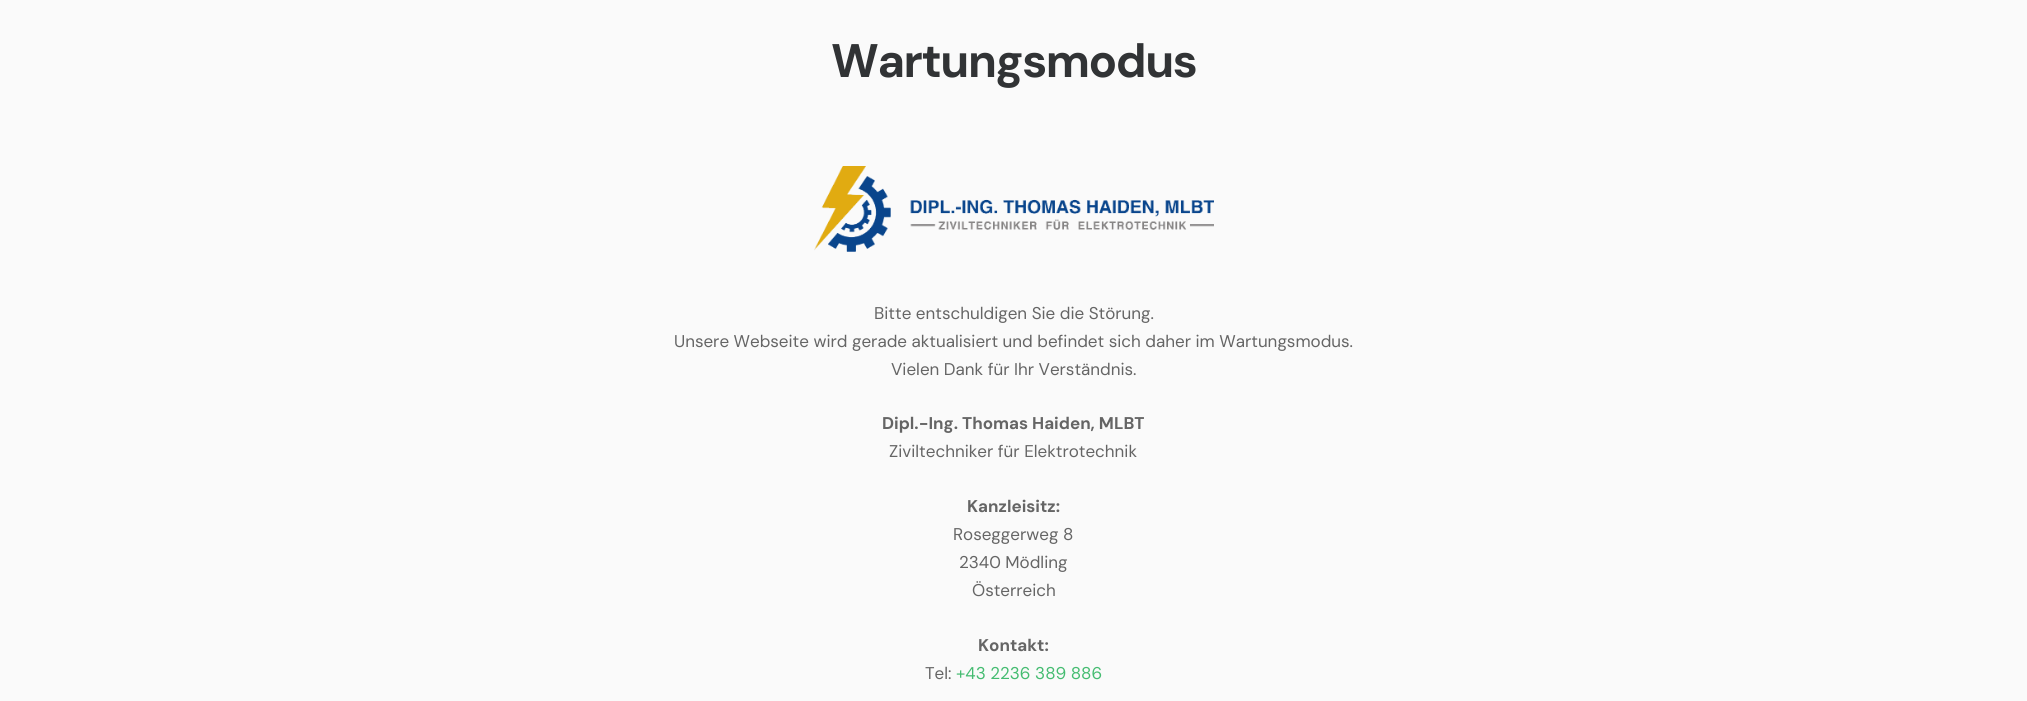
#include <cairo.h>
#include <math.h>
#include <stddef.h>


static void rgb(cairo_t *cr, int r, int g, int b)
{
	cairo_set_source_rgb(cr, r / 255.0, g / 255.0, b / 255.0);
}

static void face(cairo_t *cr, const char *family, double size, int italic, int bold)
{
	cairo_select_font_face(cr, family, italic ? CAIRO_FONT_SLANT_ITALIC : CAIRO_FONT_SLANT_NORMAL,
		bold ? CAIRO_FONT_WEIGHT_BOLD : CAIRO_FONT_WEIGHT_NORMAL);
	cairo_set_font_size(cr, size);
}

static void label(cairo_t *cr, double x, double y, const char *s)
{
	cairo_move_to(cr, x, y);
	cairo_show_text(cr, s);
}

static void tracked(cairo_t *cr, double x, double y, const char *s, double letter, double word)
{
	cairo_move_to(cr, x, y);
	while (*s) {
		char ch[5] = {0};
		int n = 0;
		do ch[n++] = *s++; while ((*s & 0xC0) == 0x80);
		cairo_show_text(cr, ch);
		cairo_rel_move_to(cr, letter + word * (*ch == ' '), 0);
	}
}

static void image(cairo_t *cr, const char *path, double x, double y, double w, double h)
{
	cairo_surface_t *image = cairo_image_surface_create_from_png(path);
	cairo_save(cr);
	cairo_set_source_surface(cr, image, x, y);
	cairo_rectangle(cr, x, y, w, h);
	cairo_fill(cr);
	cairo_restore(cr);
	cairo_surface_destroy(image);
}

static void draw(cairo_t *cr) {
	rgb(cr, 250, 250, 250);
	cairo_paint(cr);
	face(cr, "DM Sans", 47, 0, 1);
	rgb(cr, 49, 51, 53);
	tracked(cr, 831, 77, "Wartungsmodus", -1.4, 0);
	image(cr, "image0.png", 814, 166, 400, 86);
	face(cr, "DM Sans", 17, 0, 0);
	rgb(cr, 101, 101, 101);
	label(cr, 874, 319, "Bitte entschuldigen Sie die Störung.");
	label(cr, 674, 347, "Unsere Webseite wird gerade aktualisiert und befindet sich daher im Wartungsmodus.");
	label(cr, 891, 375, "Vielen Dank für Ihr Verständnis.");
	face(cr, "DM Sans", 17, 0, 1);
	label(cr, 882, 429, "Dipl.-Ing. Thomas Haiden, MLBT");
	face(cr, "DM Sans", 17, 0, 0);
	label(cr, 889, 457, "Ziviltechniker für Elektrotechnik");
	face(cr, "DM Sans", 17, 0, 1);
	label(cr, 967, 512, "Kanzleisitz:");
	face(cr, "DM Sans", 17, 0, 0);
	label(cr, 953, 540, "Roseggerweg 8");
	label(cr, 959, 568, "2340 Mödling");
	label(cr, 972, 596, "Österreich");
	face(cr, "DM Sans", 17, 0, 1);
	label(cr, 978, 651, "Kontakt:");
	face(cr, "DM Sans", 17, 0, 0);
	label(cr, 925, 679, "Tel:");
	rgb(cr, 69, 188, 113);
	label(cr, 956, 679, "+43 2236 389 886");
}

int main(void) {
	cairo_surface_t *surface = cairo_image_surface_create(CAIRO_FORMAT_RGB24, 2027, 701);
	cairo_t *cr = cairo_create(surface);
	cairo_font_options_t *options = cairo_font_options_create();
	cairo_font_options_set_hint_metrics(options, CAIRO_HINT_METRICS_OFF);
	cairo_font_options_set_hint_style(options, CAIRO_HINT_STYLE_NONE);
	cairo_set_font_options(cr, options);
	cairo_set_miter_limit(cr, 4);
	draw(cr);
	cairo_surface_write_to_png(surface, "render.png");
	cairo_font_options_destroy(options);
	cairo_destroy(cr);
	cairo_surface_destroy(surface);
	return 0;
}
